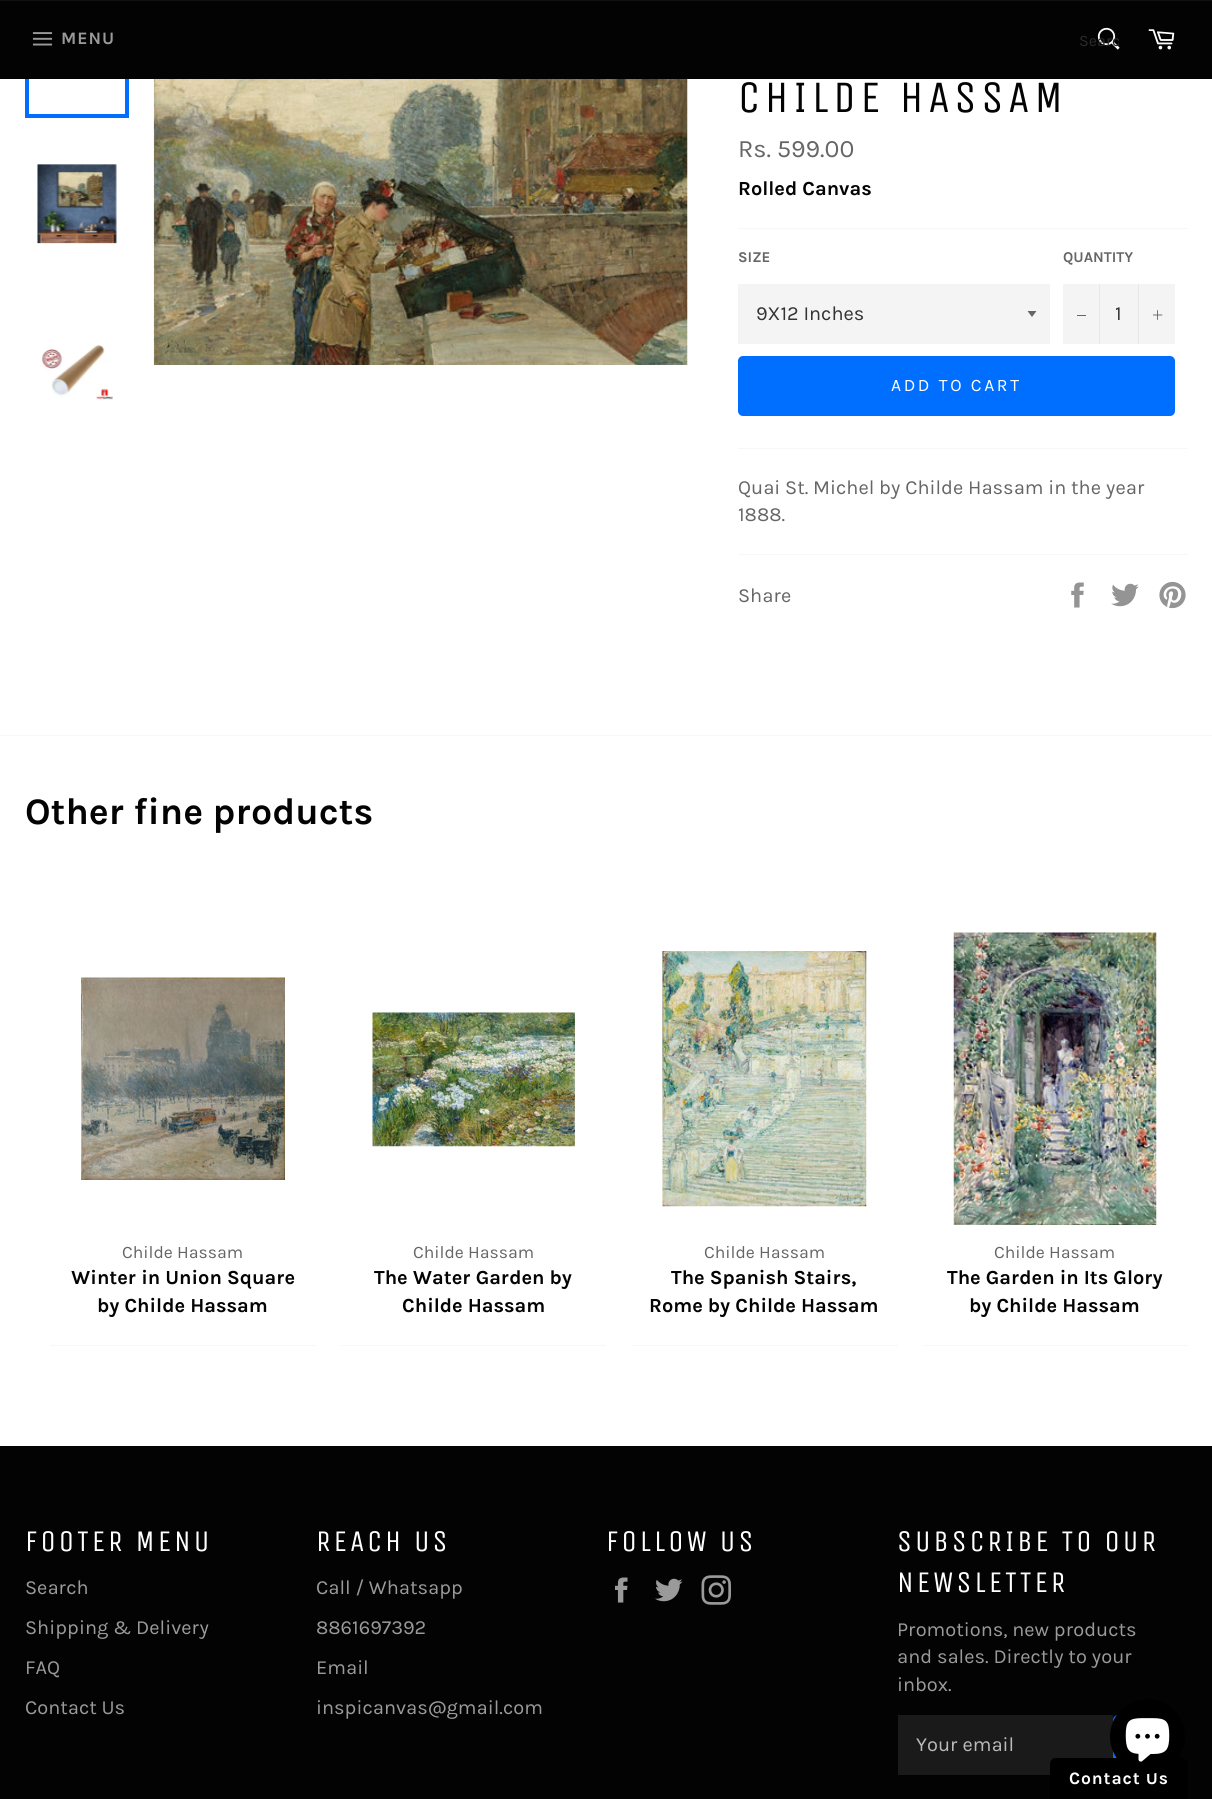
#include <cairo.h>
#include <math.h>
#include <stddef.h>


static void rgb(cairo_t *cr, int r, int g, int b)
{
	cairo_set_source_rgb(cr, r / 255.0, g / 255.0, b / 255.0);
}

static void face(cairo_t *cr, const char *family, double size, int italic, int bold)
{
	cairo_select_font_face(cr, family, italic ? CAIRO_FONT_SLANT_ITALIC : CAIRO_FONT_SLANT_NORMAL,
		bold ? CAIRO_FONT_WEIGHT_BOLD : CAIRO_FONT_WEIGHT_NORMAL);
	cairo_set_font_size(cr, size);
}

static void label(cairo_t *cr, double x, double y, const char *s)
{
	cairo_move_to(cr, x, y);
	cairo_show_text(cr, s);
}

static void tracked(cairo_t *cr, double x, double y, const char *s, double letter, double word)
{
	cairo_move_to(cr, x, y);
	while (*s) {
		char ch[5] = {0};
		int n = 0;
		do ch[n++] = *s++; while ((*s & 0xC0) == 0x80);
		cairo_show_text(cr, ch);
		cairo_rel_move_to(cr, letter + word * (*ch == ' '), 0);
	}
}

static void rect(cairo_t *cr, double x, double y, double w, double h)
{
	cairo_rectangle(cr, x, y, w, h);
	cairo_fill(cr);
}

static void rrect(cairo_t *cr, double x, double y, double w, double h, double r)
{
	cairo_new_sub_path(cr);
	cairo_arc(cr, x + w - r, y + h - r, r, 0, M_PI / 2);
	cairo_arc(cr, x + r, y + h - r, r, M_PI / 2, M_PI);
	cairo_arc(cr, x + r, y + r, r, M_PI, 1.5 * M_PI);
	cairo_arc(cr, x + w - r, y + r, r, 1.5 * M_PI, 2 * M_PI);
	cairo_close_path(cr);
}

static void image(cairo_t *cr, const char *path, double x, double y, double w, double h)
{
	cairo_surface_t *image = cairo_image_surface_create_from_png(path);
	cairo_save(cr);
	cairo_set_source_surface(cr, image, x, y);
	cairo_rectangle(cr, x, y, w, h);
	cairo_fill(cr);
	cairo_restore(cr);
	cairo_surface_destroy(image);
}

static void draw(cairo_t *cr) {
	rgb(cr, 255, 255, 255);
	cairo_paint(cr);
	cairo_rectangle(cr, 27, -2, 100, 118);
	rgb(cr, 0, 110, 255);
	cairo_set_line_width(cr, 4);
	cairo_stroke(cr);
	rgb(cr, 3, 3, 3);
	rect(cr, 0, 1, 1212, 78);
	rgb(cr, 16, 16, 16);
	rect(cr, 0, 0, 1212, 1);
	image(cr, "image0.png", 32, 32, 21, 14);
	face(cr, "Karla", 17.5, 0, 1);
	rgb(cr, 154, 154, 154);
	tracked(cr, 61, 44, "MENU", 1, 0);
	image(cr, "image1.png", 1097, 27, 23, 23);
	cairo_save(cr);
	cairo_rectangle(cr, 1079, 31, 40, 19);
	cairo_clip(cr);
	face(cr, "Karla", 16, 0, 0);
	rgb(cr, 42, 42, 42);
	label(cr, 1079, 46, "Searc");
	cairo_restore(cr);
	image(cr, "image2.png", 1148, 29, 27, 21);
	image(cr, "image3.png", 37, 164, 80, 80);
	image(cr, "image4.png", 41, 345, 72, 55);
	image(cr, "image5.png", 153, 79, 535, 286);
	face(cr, "Unica One", 45, 0, 0);
	rgb(cr, 3, 3, 3);
	tracked(cr, 738, 112, "CHILDE HASSAM", 4.5, 0);
	face(cr, "Karla", 25, 0, 0);
	rgb(cr, 102, 102, 102);
	label(cr, 738, 157, "Rs. 599.00");
	face(cr, "Karla", 20, 0, 1);
	rgb(cr, 3, 3, 3);
	label(cr, 738, 195, "Rolled Canvas");
	rgb(cr, 247, 247, 247);
	rect(cr, 738, 228, 450, 1);
	face(cr, "Karla", 15, 0, 1);
	rgb(cr, 102, 102, 102);
	label(cr, 738, 262, "SIZE");
	rgb(cr, 244, 244, 244);
	rect(cr, 738, 284, 312, 60);
	rgb(cr, 102, 102, 102);
	cairo_new_path(cr);
	cairo_move_to(cr, 1027.5, 311);
	cairo_line_to(cr, 1032, 317);
	cairo_line_to(cr, 1036.5, 311);
	cairo_close_path(cr);
	cairo_fill(cr);
	face(cr, "Karla", 20, 0, 0);
	rgb(cr, 51, 51, 51);
	label(cr, 756, 320, "9X12 Inches");
	face(cr, "Karla", 15, 0, 1);
	rgb(cr, 102, 102, 102);
	label(cr, 1063, 262, "QUANTITY");
	rgb(cr, 244, 244, 244);
	rect(cr, 1063, 284, 112, 60);
	rgb(cr, 231, 231, 231);
	rect(cr, 1099, 284, 1, 60);
	rgb(cr, 102, 102, 102);
	rect(cr, 1077, 315, 9, 1);
	face(cr, "Karla", 20, 0, 0);
	rgb(cr, 51, 51, 51);
	label(cr, 1115, 320, "1");
	rgb(cr, 231, 231, 231);
	rect(cr, 1138, 284, 1, 60);
	image(cr, "image6.png", 1153, 310, 10, 10);
	rgb(cr, 0, 110, 255);
	rrect(cr, 738, 356, 437, 60, 5);
	cairo_fill(cr);
	face(cr, "Karla", 17.5, 0, 0);
	rgb(cr, 255, 255, 255);
	tracked(cr, 891, 391, "ADD TO CART", 2.6, 0);
	rgb(cr, 247, 247, 247);
	rect(cr, 738, 448, 450, 1);
	face(cr, "Karla", 20, 0, 0);
	rgb(cr, 102, 102, 102);
	label(cr, 738, 494, "Quai St. Michel by Childe Hassam in the year");
	label(cr, 738, 521, "1888.");
	rgb(cr, 247, 247, 247);
	rect(cr, 738, 554, 450, 1);
	rgb(cr, 102, 102, 102);
	label(cr, 738, 602, "Share");
	image(cr, "image7.png", 1071, 582, 13, 26);
	image(cr, "image8.png", 1111, 583, 28, 24);
	image(cr, "image9.png", 1159, 581, 27, 28);
	rgb(cr, 247, 247, 247);
	rect(cr, 0, 735, 1212, 1);
	face(cr, "Karla", 37.5, 0, 1);
	rgb(cr, 3, 3, 3);
	label(cr, 25, 824, "Other fine products");
	rgb(cr, 247, 247, 247);
	rect(cr, 50, 1345, 266, 1);
	image(cr, "image10.png", 81, 977, 204, 203);
	face(cr, "Karla", 17.5, 0, 0);
	rgb(cr, 102, 102, 102);
	label(cr, 122, 1258, "Childe Hassam");
	face(cr, "Karla", 20, 0, 1);
	rgb(cr, 3, 3, 3);
	label(cr, 71, 1284, "Winter in Union Square");
	label(cr, 97, 1312, "by Childe Hassam");
	rgb(cr, 247, 247, 247);
	rect(cr, 341, 1345, 265, 1);
	image(cr, "image11.png", 372, 1012, 203, 135);
	face(cr, "Karla", 17.5, 0, 0);
	rgb(cr, 102, 102, 102);
	label(cr, 413, 1258, "Childe Hassam");
	face(cr, "Karla", 20, 0, 1);
	rgb(cr, 3, 3, 3);
	label(cr, 374, 1284, "The Water Garden by");
	label(cr, 402, 1312, "Childe Hassam");
	rgb(cr, 247, 247, 247);
	rect(cr, 631, 1345, 267, 1);
	image(cr, "image12.png", 662, 951, 205, 256);
	face(cr, "Karla", 17.5, 0, 0);
	rgb(cr, 102, 102, 102);
	label(cr, 704, 1258, "Childe Hassam");
	face(cr, "Karla", 20, 0, 1);
	rgb(cr, 3, 3, 3);
	label(cr, 671, 1284, "The Spanish Stairs,");
	label(cr, 649, 1312, "Rome by Childe Hassam");
	rgb(cr, 247, 247, 247);
	rect(cr, 923, 1345, 265, 1);
	image(cr, "image13.png", 953, 932, 204, 293);
	face(cr, "Karla", 17.5, 0, 0);
	rgb(cr, 102, 102, 102);
	label(cr, 994, 1258, "Childe Hassam");
	face(cr, "Karla", 20, 0, 1);
	rgb(cr, 3, 3, 3);
	label(cr, 947, 1284, "The Garden in Its Glory");
	label(cr, 969, 1312, "by Childe Hassam");
	rect(cr, 0, 1446, 1212, 353);
	face(cr, "Unica One", 30, 0, 0);
	rgb(cr, 255, 255, 255);
	tracked(cr, 25, 1551, "FOOTER MENU", 3, 0);
	face(cr, "Karla", 20, 0, 0);
	rgb(cr, 154, 154, 154);
	label(cr, 25, 1594, "Search");
	label(cr, 25, 1634, "Shipping & Delivery");
	label(cr, 25, 1674, "FAQ");
	label(cr, 25, 1714, "Contact Us");
	face(cr, "Unica One", 30, 0, 0);
	rgb(cr, 255, 255, 255);
	tracked(cr, 316, 1551, "REACH US", 3, 0);
	face(cr, "Karla", 20, 0, 0);
	rgb(cr, 154, 154, 154);
	label(cr, 316, 1594, "Call / Whatsapp");
	label(cr, 316, 1634, "8861697392");
	label(cr, 316, 1674, "Email");
	label(cr, 316, 1714, "inspicanvas@gmail.com");
	face(cr, "Unica One", 30, 0, 0);
	rgb(cr, 255, 255, 255);
	tracked(cr, 606, 1551, "FOLLOW US", 3, 0);
	image(cr, "image14.png", 615, 1577, 13, 26);
	image(cr, "image15.png", 655, 1578, 28, 24);
	image(cr, "image16.png", 701, 1575, 30, 30);
	tracked(cr, 897, 1551, "SUBSCRIBE TO OUR", 3, 0);
	tracked(cr, 897, 1592, "NEWSLETTER", 3, 0);
	face(cr, "Karla", 20, 0, 0);
	rgb(cr, 154, 154, 154);
	label(cr, 897, 1636, "Promotions, new products");
	label(cr, 897, 1663, "and sales. Directly to your");
	label(cr, 897, 1691, "inbox.");
	rgb(cr, 26, 26, 26);
	rect(cr, 898, 1715, 215, 60);
	rgb(cr, 186, 186, 186);
	label(cr, 916, 1751, "Your email");
	rgb(cr, 0, 110, 255);
	rrect(cr, 1113, 1715, 50, 60, 5);
	cairo_fill(cr);
	rgb(cr, 0, 0, 0);
	cairo_new_path(cr);
	cairo_move_to(cr, 1056, 1758);
	cairo_line_to(cr, 1182, 1758);
	cairo_curve_to(cr, 1185.5, 1758, 1188, 1760.5, 1188, 1764);
	cairo_line_to(cr, 1188, 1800);
	cairo_line_to(cr, 1050, 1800);
	cairo_line_to(cr, 1050, 1764);
	cairo_curve_to(cr, 1050, 1760.5, 1052.5, 1758, 1056, 1758);
	cairo_close_path(cr);
	cairo_fill(cr);
	face(cr, "Karla", 17.5, 0, 1);
	rgb(cr, 255, 255, 255);
	tracked(cr, 1069, 1784, "Contact Us", 0.9, 0);
	rgb(cr, 0, 0, 0);
	cairo_new_path(cr);
	cairo_arc(cr, 1147.5, 1736.5, 37.5, 0, 2 * M_PI);
	cairo_fill(cr);
	image(cr, "image17.png", 1125, 1718, 45, 44);
}

int main(void) {
	cairo_surface_t *surface = cairo_image_surface_create(CAIRO_FORMAT_RGB24, 1212, 1799);
	cairo_t *cr = cairo_create(surface);
	cairo_font_options_t *options = cairo_font_options_create();
	cairo_font_options_set_hint_metrics(options, CAIRO_HINT_METRICS_OFF);
	cairo_font_options_set_hint_style(options, CAIRO_HINT_STYLE_NONE);
	cairo_set_font_options(cr, options);
	cairo_set_miter_limit(cr, 4);
	draw(cr);
	cairo_surface_write_to_png(surface, "render.png");
	cairo_font_options_destroy(options);
	cairo_destroy(cr);
	cairo_surface_destroy(surface);
	return 0;
}
